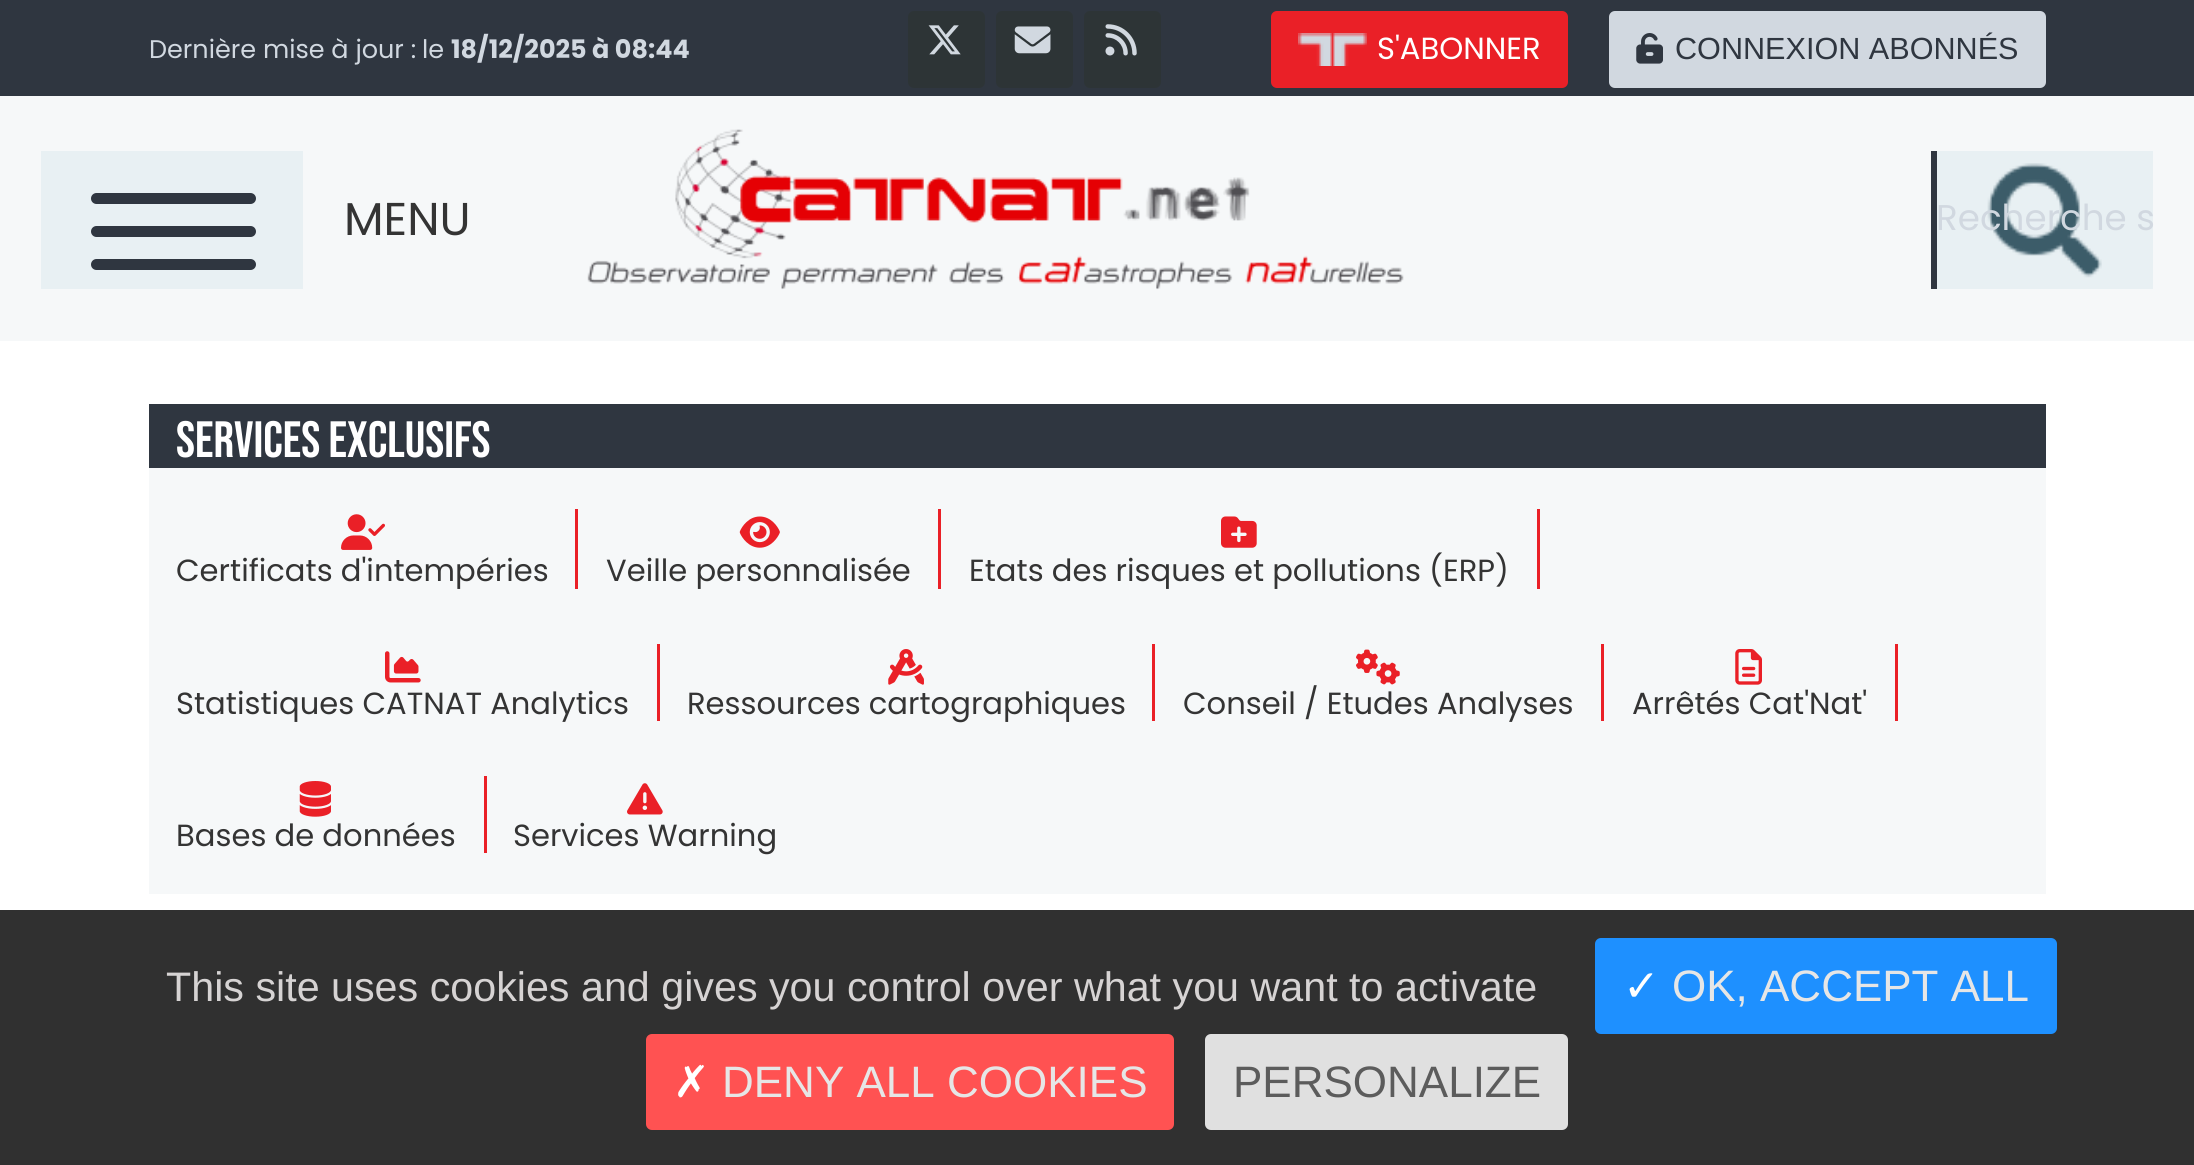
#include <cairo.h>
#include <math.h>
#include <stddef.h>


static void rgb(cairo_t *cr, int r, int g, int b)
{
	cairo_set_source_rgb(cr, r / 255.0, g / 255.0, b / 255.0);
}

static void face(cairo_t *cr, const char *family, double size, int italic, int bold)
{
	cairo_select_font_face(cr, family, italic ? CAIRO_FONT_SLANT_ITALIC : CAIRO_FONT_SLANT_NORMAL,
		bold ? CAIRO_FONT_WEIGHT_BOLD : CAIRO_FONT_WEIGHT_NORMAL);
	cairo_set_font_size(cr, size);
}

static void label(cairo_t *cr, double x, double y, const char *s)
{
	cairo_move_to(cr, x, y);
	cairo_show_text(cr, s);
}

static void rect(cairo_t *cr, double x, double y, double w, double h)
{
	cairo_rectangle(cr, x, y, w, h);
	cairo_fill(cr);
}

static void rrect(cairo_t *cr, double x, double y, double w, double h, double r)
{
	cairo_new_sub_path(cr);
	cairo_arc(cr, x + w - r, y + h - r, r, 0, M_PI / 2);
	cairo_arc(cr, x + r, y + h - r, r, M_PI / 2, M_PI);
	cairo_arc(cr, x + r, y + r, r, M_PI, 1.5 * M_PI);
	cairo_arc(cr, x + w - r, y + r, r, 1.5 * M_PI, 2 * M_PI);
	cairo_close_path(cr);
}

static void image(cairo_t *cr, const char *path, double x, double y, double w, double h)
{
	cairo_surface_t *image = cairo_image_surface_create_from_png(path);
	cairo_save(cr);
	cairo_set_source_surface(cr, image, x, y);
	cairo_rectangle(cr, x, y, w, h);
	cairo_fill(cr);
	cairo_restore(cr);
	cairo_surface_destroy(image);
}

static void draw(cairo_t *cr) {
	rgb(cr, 255, 255, 255);
	cairo_paint(cr);
	rgb(cr, 47, 54, 64);
	rect(cr, 0, 0, 2194, 96);
	face(cr, "Poppins", 25.5, 0, 0);
	rgb(cr, 209, 216, 224);
	label(cr, 149, 58, "Dernière mise à jour :");
	label(cr, 422, 58, "le");
	face(cr, "Poppins", 25.5, 0, 1);
	label(cr, 451, 58, "18/12/2025 à 08:44");
	rgb(cr, 45, 52, 54);
	rrect(cr, 908, 11, 77, 77, 6);
	cairo_fill(cr);
	image(cr, "image0.png", 928, 25, 33, 30);
	rrect(cr, 996, 11, 77, 77, 6);
	cairo_fill(cr);
	image(cr, "image1.png", 1014, 26, 37, 28);
	rrect(cr, 1084, 11, 77, 77, 6);
	cairo_fill(cr);
	image(cr, "image2.png", 1105, 24, 32, 32);
	rgb(cr, 234, 32, 39);
	rrect(cr, 1271, 11, 297, 77, 6);
	cairo_fill(cr);
	image(cr, "image3.png", 1298, 33, 69, 33);
	face(cr, "Poppins", 30.6, 0, 0);
	rgb(cr, 255, 255, 255);
	label(cr, 1377, 59, "S'ABONNER");
	rgb(cr, 209, 216, 224);
	rrect(cr, 1609, 11, 437, 77, 6);
	cairo_fill(cr);
	image(cr, "image4.png", 1636, 33, 27, 31);
	face(cr, "Liberation Sans", 30.6, 0, 0);
	rgb(cr, 47, 54, 64);
	label(cr, 1675, 59, "CONNEXION ABONNÉS");
	rgb(cr, 246, 248, 249);
	rect(cr, 0, 96, 2194, 245);
	rgb(cr, 232, 240, 243);
	rect(cr, 41, 151, 262, 138);
	rgb(cr, 47, 54, 64);
	rrect(cr, 91, 193, 165, 11, 5.5);
	cairo_fill(cr);
	rrect(cr, 91, 226, 165, 11, 5.5);
	cairo_fill(cr);
	rrect(cr, 91, 259, 165, 11, 5.5);
	cairo_fill(cr);
	face(cr, "Poppins", 46, 0, 0);
	rgb(cr, 52, 52, 52);
	label(cr, 344, 235, "MENU");
	image(cr, "image5.png", 587, 129, 817, 161);
	rgb(cr, 232, 240, 243);
	rect(cr, 1937, 151, 216, 138);
	image(cr, "image6.png", 1987, 163, 115, 115);
	rgb(cr, 47, 54, 64);
	rect(cr, 1931, 151, 6, 138);
	face(cr, "Poppins", 35.75, 0, 0);
	rgb(cr, 209, 216, 224);
	label(cr, 1936, 230, "Recherche s");
	rgb(cr, 246, 248, 249);
	rect(cr, 149, 468, 1897, 426);
	rgb(cr, 47, 54, 64);
	rect(cr, 149, 404, 1897, 64);
	face(cr, "Bebas Neue", 51, 0, 0);
	rgb(cr, 255, 255, 255);
	label(cr, 176, 457, "SERVICES EXCLUSIFS");
	rgb(cr, 234, 32, 39);
	rect(cr, 575, 509, 3, 80);
	image(cr, "image7.png", 341, 514, 44, 36);
	face(cr, "Poppins", 30.6, 0, 0);
	rgb(cr, 52, 52, 52);
	label(cr, 176, 581, "Certificats d'intempéries");
	rgb(cr, 234, 32, 39);
	rect(cr, 938, 509, 3, 80);
	image(cr, "image8.png", 739, 516, 41, 32);
	rgb(cr, 52, 52, 52);
	label(cr, 606, 581, "Veille personnalisée");
	rgb(cr, 234, 32, 39);
	rect(cr, 1537, 509, 3, 80);
	image(cr, "image9.png", 1221, 516, 36, 32);
	rgb(cr, 52, 52, 52);
	label(cr, 969, 581, "Etats des risques et pollutions (ERP)");
	rgb(cr, 234, 32, 39);
	rect(cr, 657, 644, 3, 77);
	image(cr, "image10.png", 385, 651, 36, 32);
	rgb(cr, 52, 52, 52);
	label(cr, 176, 714, "Statistiques CATNAT Analytics");
	rgb(cr, 234, 32, 39);
	rect(cr, 1152, 644, 3, 77);
	image(cr, "image11.png", 888, 649, 36, 36);
	rgb(cr, 52, 52, 52);
	label(cr, 687, 714, "Ressources cartographiques");
	rgb(cr, 234, 32, 39);
	rect(cr, 1601, 644, 3, 77);
	image(cr, "image12.png", 1356, 649, 44, 36);
	rgb(cr, 52, 52, 52);
	label(cr, 1183, 714, "Conseil / Etudes Analyses");
	rgb(cr, 234, 32, 39);
	rect(cr, 1895, 644, 3, 77);
	image(cr, "image13.png", 1735, 649, 27, 36);
	rgb(cr, 52, 52, 52);
	label(cr, 1632, 714, "Arrêtés Cat'Nat'");
	rgb(cr, 234, 32, 39);
	rect(cr, 484, 776, 3, 77);
	image(cr, "image14.png", 299, 781, 32, 36);
	rgb(cr, 52, 52, 52);
	label(cr, 176, 846, "Bases de données");
	image(cr, "image15.png", 627, 783, 36, 32);
	label(cr, 513, 846, "Services Warning");
	rgb(cr, 48, 48, 48);
	rect(cr, 0, 910, 2194, 255);
	face(cr, "Liberation Sans", 41.25, 0, 0);
	rgb(cr, 214, 211, 211);
	label(cr, 166, 1001, "This site uses cookies and gives you control over what you want to activate");
	rgb(cr, 30, 144, 255);
	rrect(cr, 1595, 938, 462, 96, 6);
	cairo_fill(cr);
	face(cr, "DejaVu Sans", 44, 0, 0);
	rgb(cr, 255, 255, 255);
	label(cr, 1623, 1001, "✓");
	face(cr, "Liberation Sans", 44, 0, 0);
	rgb(cr, 230, 230, 230);
	label(cr, 1672, 1001, "OK, ACCEPT ALL");
	rgb(cr, 255, 82, 82);
	rrect(cr, 646, 1034, 528, 96, 6);
	cairo_fill(cr);
	face(cr, "DejaVu Sans", 44, 0, 0);
	rgb(cr, 255, 255, 255);
	label(cr, 673, 1097, "✗");
	face(cr, "Liberation Sans", 44, 0, 0);
	rgb(cr, 230, 230, 230);
	label(cr, 722, 1097, "DENY ALL COOKIES");
	rgb(cr, 224, 224, 224);
	rrect(cr, 1205, 1034, 363, 96, 6);
	cairo_fill(cr);
	rgb(cr, 92, 92, 92);
	label(cr, 1233, 1097, "PERSONALIZE");
}

int main(void) {
	cairo_surface_t *surface = cairo_image_surface_create(CAIRO_FORMAT_RGB24, 2194, 1165);
	cairo_t *cr = cairo_create(surface);
	cairo_font_options_t *options = cairo_font_options_create();
	cairo_font_options_set_hint_metrics(options, CAIRO_HINT_METRICS_OFF);
	cairo_font_options_set_hint_style(options, CAIRO_HINT_STYLE_NONE);
	cairo_set_font_options(cr, options);
	cairo_set_miter_limit(cr, 4);
	draw(cr);
	cairo_surface_write_to_png(surface, "render.png");
	cairo_font_options_destroy(options);
	cairo_destroy(cr);
	cairo_surface_destroy(surface);
	return 0;
}
